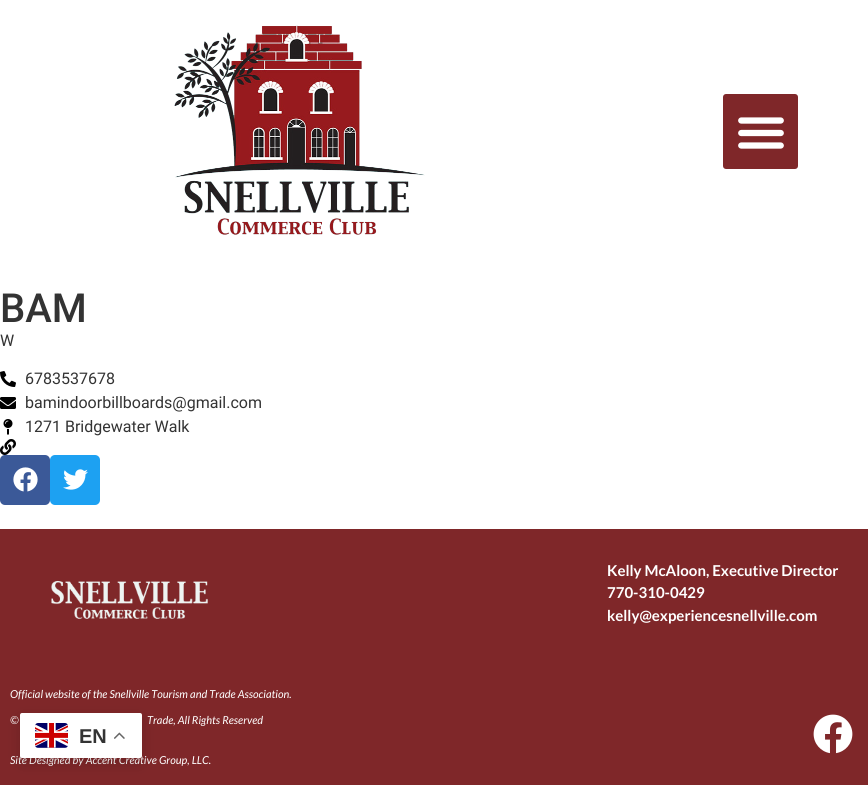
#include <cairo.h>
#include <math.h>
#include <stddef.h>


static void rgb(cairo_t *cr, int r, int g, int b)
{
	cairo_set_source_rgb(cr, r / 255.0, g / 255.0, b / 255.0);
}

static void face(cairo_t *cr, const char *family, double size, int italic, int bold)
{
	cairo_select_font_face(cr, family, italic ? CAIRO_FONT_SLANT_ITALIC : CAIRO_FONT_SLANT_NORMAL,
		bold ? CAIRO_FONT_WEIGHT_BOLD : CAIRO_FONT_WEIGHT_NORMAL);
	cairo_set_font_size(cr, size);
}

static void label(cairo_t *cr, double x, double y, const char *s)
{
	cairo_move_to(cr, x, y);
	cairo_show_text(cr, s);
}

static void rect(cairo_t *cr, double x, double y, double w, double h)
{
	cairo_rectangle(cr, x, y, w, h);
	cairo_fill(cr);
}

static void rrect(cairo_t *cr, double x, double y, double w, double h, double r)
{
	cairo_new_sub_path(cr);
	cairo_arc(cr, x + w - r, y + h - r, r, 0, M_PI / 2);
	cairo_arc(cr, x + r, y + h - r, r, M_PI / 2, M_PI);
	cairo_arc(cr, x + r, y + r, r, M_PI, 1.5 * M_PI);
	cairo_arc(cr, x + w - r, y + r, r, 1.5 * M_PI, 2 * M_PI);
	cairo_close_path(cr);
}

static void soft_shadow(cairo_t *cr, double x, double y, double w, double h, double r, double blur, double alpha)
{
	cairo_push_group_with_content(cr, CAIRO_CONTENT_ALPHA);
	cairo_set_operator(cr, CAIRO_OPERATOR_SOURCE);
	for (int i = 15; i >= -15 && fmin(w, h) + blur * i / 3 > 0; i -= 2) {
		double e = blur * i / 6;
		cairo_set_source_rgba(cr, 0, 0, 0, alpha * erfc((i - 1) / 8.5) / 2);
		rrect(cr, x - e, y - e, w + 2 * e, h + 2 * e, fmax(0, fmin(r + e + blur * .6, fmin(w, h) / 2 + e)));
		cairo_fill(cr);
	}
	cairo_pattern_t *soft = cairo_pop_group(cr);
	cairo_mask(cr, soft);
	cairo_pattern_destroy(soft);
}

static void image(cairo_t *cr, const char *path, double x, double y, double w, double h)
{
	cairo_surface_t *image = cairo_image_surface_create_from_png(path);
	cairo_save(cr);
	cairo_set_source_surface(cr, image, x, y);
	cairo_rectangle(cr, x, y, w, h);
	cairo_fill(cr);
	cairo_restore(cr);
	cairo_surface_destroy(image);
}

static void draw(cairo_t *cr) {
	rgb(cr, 255, 255, 255);
	cairo_paint(cr);
	image(cr, "image0.png", 174, 25, 251, 210);
	rgb(cr, 127, 39, 41);
	rrect(cr, 723, 94, 75, 75, 3);
	cairo_fill(cr);
	image(cr, "image1.png", 738, 117, 46, 32);
	face(cr, "Roboto Medium", 40, 0, 0);
	rgb(cr, 51, 51, 51);
	label(cr, 0, 322, "BAM");
	face(cr, "Roboto", 16, 0, 0);
	label(cr, 0, 346, "W");
	image(cr, "image2.png", 0, 371, 16, 16);
	label(cr, 25, 384, "6783537678");
	image(cr, "image3.png", 0, 397, 16, 12);
	label(cr, 25, 408, "bamindoorbillboards@gmail.com");
	image(cr, "image4.png", 3, 419, 10, 16);
	label(cr, 25, 432, "1271 Bridgewater Walk");
	image(cr, "image5.png", 0, 439, 16, 16);
	rgb(cr, 59, 89, 152);
	rrect(cr, 0, 455, 50, 50, 5);
	cairo_fill(cr);
	image(cr, "image6.png", 13, 467, 25, 25);
	rgb(cr, 29, 161, 242);
	rrect(cr, 50, 455, 50, 50, 5);
	cairo_fill(cr);
	image(cr, "image7.png", 63, 469, 25, 21);
	rgb(cr, 127, 39, 41);
	rect(cr, 0, 529, 868, 256);
	image(cr, "image8.png", 51, 580, 157, 39);
	face(cr, "Lato", 15, 0, 1);
	rgb(cr, 255, 255, 255);
	label(cr, 607, 576, "Kelly McAloon, Executive Director");
	label(cr, 607, 598, "770-310-0429");
	label(cr, 607, 621, "kelly@experiencesnellville.com");
	face(cr, "Lato", 11, 1, 0);
	label(cr, 10, 698, "Official website of the Snellville Tourism and Trade Association.");
	label(cr, 10, 724, "©");
	label(cr, 147, 724, "Trade, All Rights Reserved");
	label(cr, 10, 764, "Site Designed by Accent Creative Group, LLC.");
	image(cr, "image9.png", 813, 714, 40, 40);
	rgb(cr, 0, 0, 0);
	soft_shadow(cr, 20, 718, 122, 45, 2, 7.5, 0.15);
	rgb(cr, 255, 255, 255);
	rrect(cr, 20, 713, 122, 45, 2);
	cairo_fill(cr);
	image(cr, "image10.png", 35, 723, 33, 25);
	face(cr, "Liberation Sans", 20, 0, 1);
	rgb(cr, 51, 51, 51);
	label(cr, 79, 743, "EN");
	image(cr, "image11.png", 114, 732, 11, 7);
}

int main(void) {
	cairo_surface_t *surface = cairo_image_surface_create(CAIRO_FORMAT_RGB24, 868, 785);
	cairo_t *cr = cairo_create(surface);
	cairo_font_options_t *options = cairo_font_options_create();
	cairo_font_options_set_hint_metrics(options, CAIRO_HINT_METRICS_OFF);
	cairo_font_options_set_hint_style(options, CAIRO_HINT_STYLE_NONE);
	cairo_set_font_options(cr, options);
	cairo_set_miter_limit(cr, 4);
	draw(cr);
	cairo_surface_write_to_png(surface, "render.png");
	cairo_font_options_destroy(options);
	cairo_destroy(cr);
	cairo_surface_destroy(surface);
	return 0;
}
